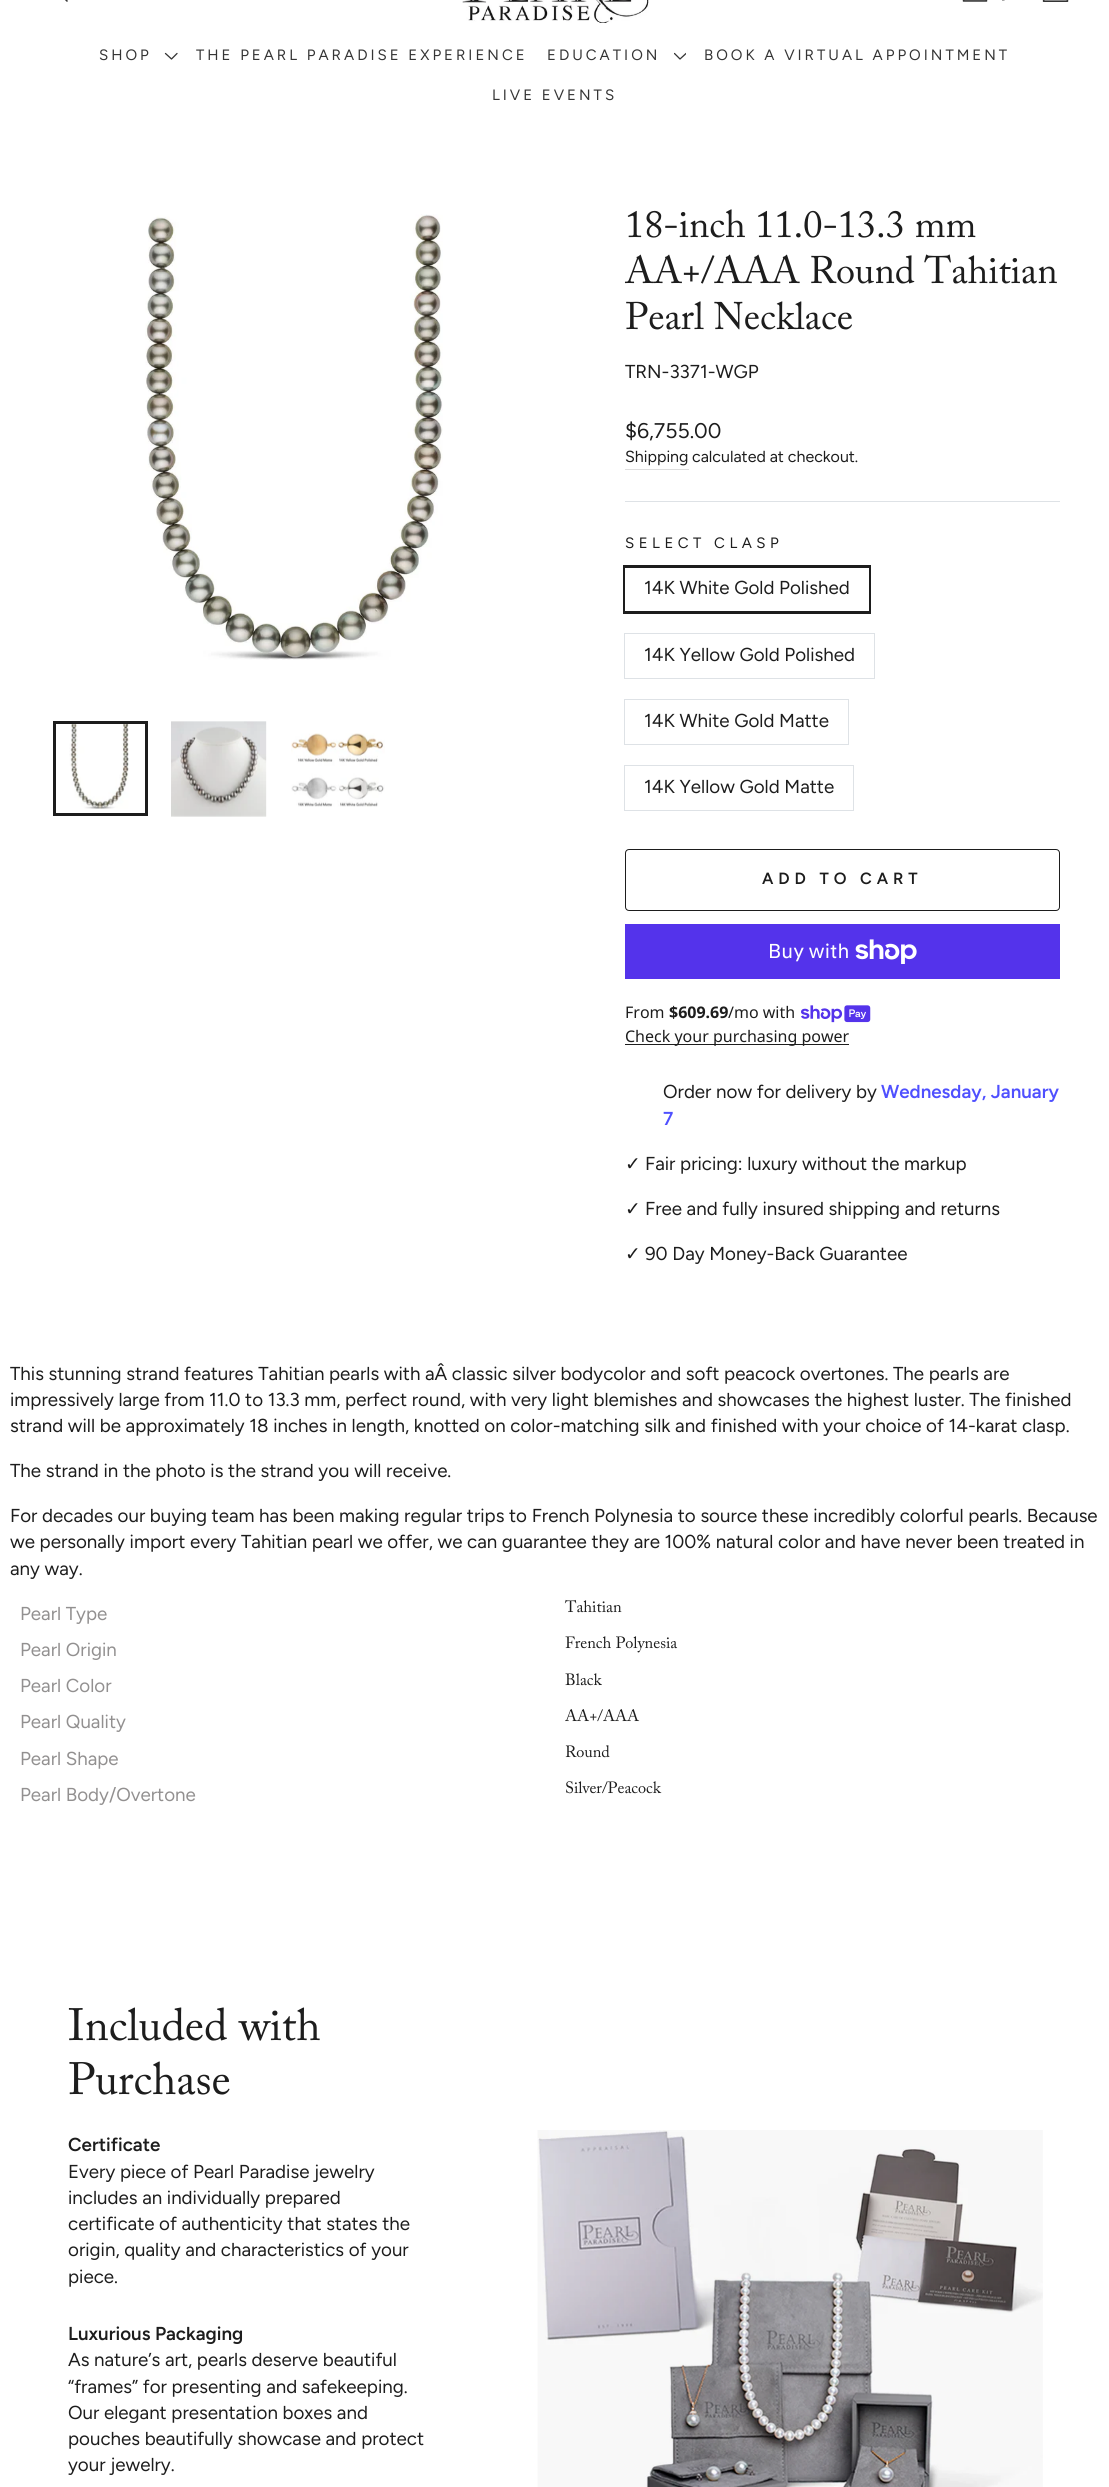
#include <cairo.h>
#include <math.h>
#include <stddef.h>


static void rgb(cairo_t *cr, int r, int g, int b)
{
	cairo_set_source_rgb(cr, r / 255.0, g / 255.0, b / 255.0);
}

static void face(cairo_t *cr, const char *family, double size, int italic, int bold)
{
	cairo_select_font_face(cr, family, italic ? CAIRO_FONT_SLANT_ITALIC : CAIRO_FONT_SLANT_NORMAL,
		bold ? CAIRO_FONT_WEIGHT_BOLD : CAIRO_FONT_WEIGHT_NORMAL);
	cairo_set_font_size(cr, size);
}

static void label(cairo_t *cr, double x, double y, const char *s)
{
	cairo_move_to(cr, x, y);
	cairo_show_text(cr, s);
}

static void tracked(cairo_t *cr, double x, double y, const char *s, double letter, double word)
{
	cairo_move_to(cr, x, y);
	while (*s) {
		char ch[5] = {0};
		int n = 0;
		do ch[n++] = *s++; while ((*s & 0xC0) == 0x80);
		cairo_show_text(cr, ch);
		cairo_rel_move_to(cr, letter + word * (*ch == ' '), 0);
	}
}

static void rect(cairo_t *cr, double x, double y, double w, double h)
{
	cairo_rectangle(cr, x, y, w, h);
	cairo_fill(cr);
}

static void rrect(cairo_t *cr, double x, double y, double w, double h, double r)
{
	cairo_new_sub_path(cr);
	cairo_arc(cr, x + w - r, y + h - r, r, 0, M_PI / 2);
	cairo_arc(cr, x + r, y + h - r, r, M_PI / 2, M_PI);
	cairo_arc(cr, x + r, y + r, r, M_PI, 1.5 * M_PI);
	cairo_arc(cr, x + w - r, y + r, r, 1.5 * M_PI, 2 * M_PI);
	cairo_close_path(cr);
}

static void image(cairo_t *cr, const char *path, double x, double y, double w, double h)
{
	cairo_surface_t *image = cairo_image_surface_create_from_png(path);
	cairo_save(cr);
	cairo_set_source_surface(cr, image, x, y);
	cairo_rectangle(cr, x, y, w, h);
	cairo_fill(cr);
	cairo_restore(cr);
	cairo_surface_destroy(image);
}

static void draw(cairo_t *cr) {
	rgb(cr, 255, 255, 255);
	cairo_paint(cr);
	cairo_new_path(cr);
	cairo_move_to(cr, 63.5, -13);
	cairo_curve_to(cr, 63.5, 0, 43, 0, 43, -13);
	cairo_curve_to(cr, 43, -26.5, 63.5, -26.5, 63.5, -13);
	cairo_close_path(cr);
	cairo_move_to(cr, 67, 1);
	cairo_line_to(cr, 60.5, -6);
	rgb(cr, 53, 53, 53);
	cairo_set_line_width(cr, 1.6);
	cairo_set_line_cap(cr, CAIRO_LINE_CAP_ROUND);
	cairo_set_line_join(cr, CAIRO_LINE_JOIN_ROUND);
	cairo_stroke(cr);
	image(cr, "image0.png", 462, 0, 187, 23);
	image(cr, "image1.png", 962, 0, 26, 2);
	image(cr, "image2.png", 1002, 0, 3, 1);
	image(cr, "image3.png", 1042, 0, 27, 2);
	face(cr, "Figtree", 15, 0, 0);
	tracked(cr, 99, 60, "SHOP", 3, 0);
	cairo_new_path(cr);
	cairo_move_to(cr, 165.5, 53.5);
	cairo_line_to(cr, 171.5, 59);
	cairo_line_to(cr, 177, 53.5);
	cairo_set_line_width(cr, 1.3);
	cairo_stroke(cr);
	tracked(cr, 196, 60, "THE PEARL PARADISE EXPERIENCE", 3, 0);
	tracked(cr, 547, 60, "EDUCATION", 3, 0);
	cairo_save(cr);
	cairo_rectangle(cr, 674, 50, 12, 13);
	cairo_clip(cr);
	cairo_new_path(cr);
	cairo_move_to(cr, 674.5, 53.5);
	cairo_line_to(cr, 680, 59);
	cairo_line_to(cr, 686, 53.5);
	cairo_stroke(cr);
	cairo_restore(cr);
	tracked(cr, 704, 60, "BOOK A VIRTUAL APPOINTMENT", 3, 0);
	tracked(cr, 492, 100, "LIVE EVENTS", 3, 0);
	image(cr, "image4.png", 145, 214, 298, 446);
	image(cr, "image5.png", 69, 724, 60, 85);
	cairo_rectangle(cr, 54.5, 722.5, 92, 92);
	rgb(cr, 29, 29, 29);
	cairo_set_line_width(cr, 3);
	cairo_set_line_cap(cr, CAIRO_LINE_CAP_BUTT);
	cairo_set_line_join(cr, CAIRO_LINE_JOIN_MITER);
	cairo_stroke(cr);
	image(cr, "image6.png", 171, 721, 96, 96);
	image(cr, "image7.png", 291, 733, 94, 74);
	face(cr, "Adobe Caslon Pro", 38.25, 0, 0);
	label(cr, 625, 237, "18-inch 11.0-13.3 mm");
	label(cr, 625, 283, "AA+/AAA Round Tahitian");
	label(cr, 625, 329, "Pearl Necklace");
	face(cr, "Figtree", 18.75, 0, 0);
	label(cr, 625, 378, "TRN-3371-WGP");
	face(cr, "Figtree", 21.25, 0, 0);
	label(cr, 625, 438, "$6,755.00");
	rgb(cr, 221, 221, 221);
	rect(cr, 625, 469, 64, 1);
	face(cr, "Figtree", 16, 0, 0);
	rgb(cr, 29, 29, 29);
	label(cr, 625, 462, "Shipping");
	label(cr, 692, 462, "calculated at checkout.");
	rgb(cr, 222, 226, 230);
	rect(cr, 625, 501, 435, 1);
	face(cr, "Figtree", 15, 0, 0);
	rgb(cr, 29, 29, 29);
	tracked(cr, 625, 548, "SELECT CLASP", 4.5, 0);
	cairo_rectangle(cr, 624.5, 566.5, 245, 46);
	cairo_stroke(cr);
	rgb(cr, 255, 255, 255);
	rect(cr, 625, 568, 244, 43);
	face(cr, "Figtree", 18.75, 0, 0);
	rgb(cr, 29, 29, 29);
	label(cr, 644, 594, "14K White Gold Polished");
	cairo_rectangle(cr, 624.5, 633.5, 250, 45);
	rgb(cr, 222, 226, 230);
	cairo_set_line_width(cr, 1);
	cairo_stroke(cr);
	rgb(cr, 29, 29, 29);
	label(cr, 644, 661, "14K Yellow Gold Polished");
	cairo_rectangle(cr, 624.5, 699.5, 224, 45);
	rgb(cr, 222, 226, 230);
	cairo_stroke(cr);
	rgb(cr, 29, 29, 29);
	label(cr, 644, 727, "14K White Gold Matte");
	cairo_rectangle(cr, 624.5, 765.5, 229, 45);
	rgb(cr, 222, 226, 230);
	cairo_stroke(cr);
	rgb(cr, 29, 29, 29);
	label(cr, 644, 793, "14K Yellow Gold Matte");
	rrect(cr, 625.5, 849.5, 434, 61, 3.5);
	cairo_stroke(cr);
	face(cr, "Figtree SemiBold", 16.25, 0, 0);
	tracked(cr, 762, 884, "ADD TO CART", 4.9, 0);
	rgb(cr, 84, 51, 235);
	rect(cr, 625, 924, 435, 55);
	face(cr, "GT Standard", 20, 0, 0);
	rgb(cr, 255, 255, 255);
	label(cr, 768, 958, "Buy with");
	image(cr, "image8.png", 855, 939, 62, 25);
	face(cr, "Noto Sans", 16, 0, 0);
	rgb(cr, 29, 29, 29);
	label(cr, 625, 1018, "From");
	face(cr, "Noto Sans", 16, 0, 1);
	label(cr, 669, 1018, "$609.69");
	face(cr, "Noto Sans", 16, 0, 0);
	label(cr, 728, 1018, "/mo with");
	image(cr, "image9.png", 801, 1005, 70, 18);
	rect(cr, 625, 1044, 224, 1);
	label(cr, 625, 1042, "Check your purchasing power");
	face(cr, "Figtree", 18.75, 0, 0);
	label(cr, 663, 1098, "Order now for delivery by");
	face(cr, "Figtree SemiBold", 18.75, 0, 0);
	rgb(cr, 79, 80, 255);
	label(cr, 881, 1098, "Wednesday, January");
	label(cr, 663, 1125, "7");
	face(cr, "DejaVu Sans", 18.75, 0, 0);
	rgb(cr, 29, 29, 29);
	label(cr, 625, 1170, "✓");
	face(cr, "Figtree", 18.75, 0, 0);
	label(cr, 645, 1170, "Fair pricing: luxury without the markup");
	face(cr, "DejaVu Sans", 18.75, 0, 0);
	label(cr, 625, 1215, "✓");
	face(cr, "Figtree", 18.75, 0, 0);
	label(cr, 645, 1215, "Free and fully insured shipping and returns");
	face(cr, "DejaVu Sans", 18.75, 0, 0);
	label(cr, 625, 1260, "✓");
	face(cr, "Figtree", 18.75, 0, 0);
	label(cr, 645, 1260, "90 Day Money-Back Guarantee");
	label(cr, 10, 1380, "This stunning strand features Tahitian pearls with aÂ classic silver bodycolor and soft peacock overtones. The pearls are");
	label(cr, 10, 1406, "impressively large from 11.0 to 13.3 mm, perfect round, with very light blemishes and showcases the highest luster. The finished");
	label(cr, 10, 1432, "strand will be approximately 18 inches in length, knotted on color-matching silk and finished with your choice of 14-karat clasp.");
	label(cr, 10, 1477, "The strand in the photo is the strand you will receive.");
	label(cr, 10, 1522, "For decades our buying team has been making regular trips to French Polynesia to source these incredibly colorful pearls. Because");
	label(cr, 10, 1548, "we personally import every Tahitian pearl we offer, we can guarantee they are 100% natural color and have never been treated in");
	label(cr, 10, 1575, "any way.");
	rgb(cr, 146, 144, 144);
	label(cr, 20, 1620, "Pearl Type");
	face(cr, "Adobe Caslon Pro", 16.25, 0, 0);
	rgb(cr, 29, 29, 29);
	label(cr, 565, 1612, "Tahitian");
	face(cr, "Figtree", 18.75, 0, 0);
	rgb(cr, 146, 144, 144);
	label(cr, 20, 1656, "Pearl Origin");
	face(cr, "Adobe Caslon Pro", 16.25, 0, 0);
	rgb(cr, 29, 29, 29);
	label(cr, 565, 1648, "French Polynesia");
	face(cr, "Figtree", 18.75, 0, 0);
	rgb(cr, 146, 144, 144);
	label(cr, 20, 1692, "Pearl Color");
	face(cr, "Adobe Caslon Pro", 16.25, 0, 0);
	rgb(cr, 29, 29, 29);
	label(cr, 565, 1685, "Black");
	face(cr, "Figtree", 18.75, 0, 0);
	rgb(cr, 146, 144, 144);
	label(cr, 20, 1728, "Pearl Quality");
	face(cr, "Adobe Caslon Pro", 16.25, 0, 0);
	rgb(cr, 29, 29, 29);
	label(cr, 565, 1721, "AA+/AAA");
	face(cr, "Figtree", 18.75, 0, 0);
	rgb(cr, 146, 144, 144);
	label(cr, 20, 1765, "Pearl Shape");
	face(cr, "Adobe Caslon Pro", 16.25, 0, 0);
	rgb(cr, 29, 29, 29);
	label(cr, 565, 1757, "Round");
	face(cr, "Figtree", 18.75, 0, 0);
	rgb(cr, 146, 144, 144);
	label(cr, 20, 1801, "Pearl Body/Overtone");
	face(cr, "Adobe Caslon Pro", 16.25, 0, 0);
	rgb(cr, 29, 29, 29);
	label(cr, 565, 1793, "Silver/Peacock");
	face(cr, "Adobe Caslon Pro", 45, 0, 0);
	label(cr, 68, 2040, "Included with");
	label(cr, 68, 2094, "Purchase");
	face(cr, "Figtree SemiBold", 18.75, 0, 0);
	label(cr, 68, 2151, "Certificate");
	face(cr, "Figtree", 18.75, 0, 0);
	label(cr, 68, 2178, "Every piece of Pearl Paradise jewelry");
	label(cr, 68, 2204, "includes an individually prepared");
	label(cr, 68, 2230, "certificate of authenticity that states the");
	label(cr, 68, 2256, "origin, quality and characteristics of your");
	label(cr, 68, 2283, "piece.");
	face(cr, "Figtree SemiBold", 18.75, 0, 0);
	label(cr, 68, 2340, "Luxurious Packaging");
	face(cr, "Figtree", 18.75, 0, 0);
	label(cr, 68, 2366, "As nature’s art, pearls deserve beautiful");
	label(cr, 68, 2393, "“frames” for presenting and safekeeping.");
	label(cr, 68, 2419, "Our elegant presentation boxes and");
	label(cr, 68, 2445, "pouches beautifully showcase and protect");
	label(cr, 68, 2471, "your jewelry.");
	image(cr, "image10.png", 537, 2130, 506, 357);
}

int main(void) {
	cairo_surface_t *surface = cairo_image_surface_create(CAIRO_FORMAT_RGB24, 1109, 2487);
	cairo_t *cr = cairo_create(surface);
	cairo_font_options_t *options = cairo_font_options_create();
	cairo_font_options_set_hint_metrics(options, CAIRO_HINT_METRICS_OFF);
	cairo_font_options_set_hint_style(options, CAIRO_HINT_STYLE_NONE);
	cairo_set_font_options(cr, options);
	cairo_set_miter_limit(cr, 4);
	draw(cr);
	cairo_surface_write_to_png(surface, "render.png");
	cairo_font_options_destroy(options);
	cairo_destroy(cr);
	cairo_surface_destroy(surface);
	return 0;
}
